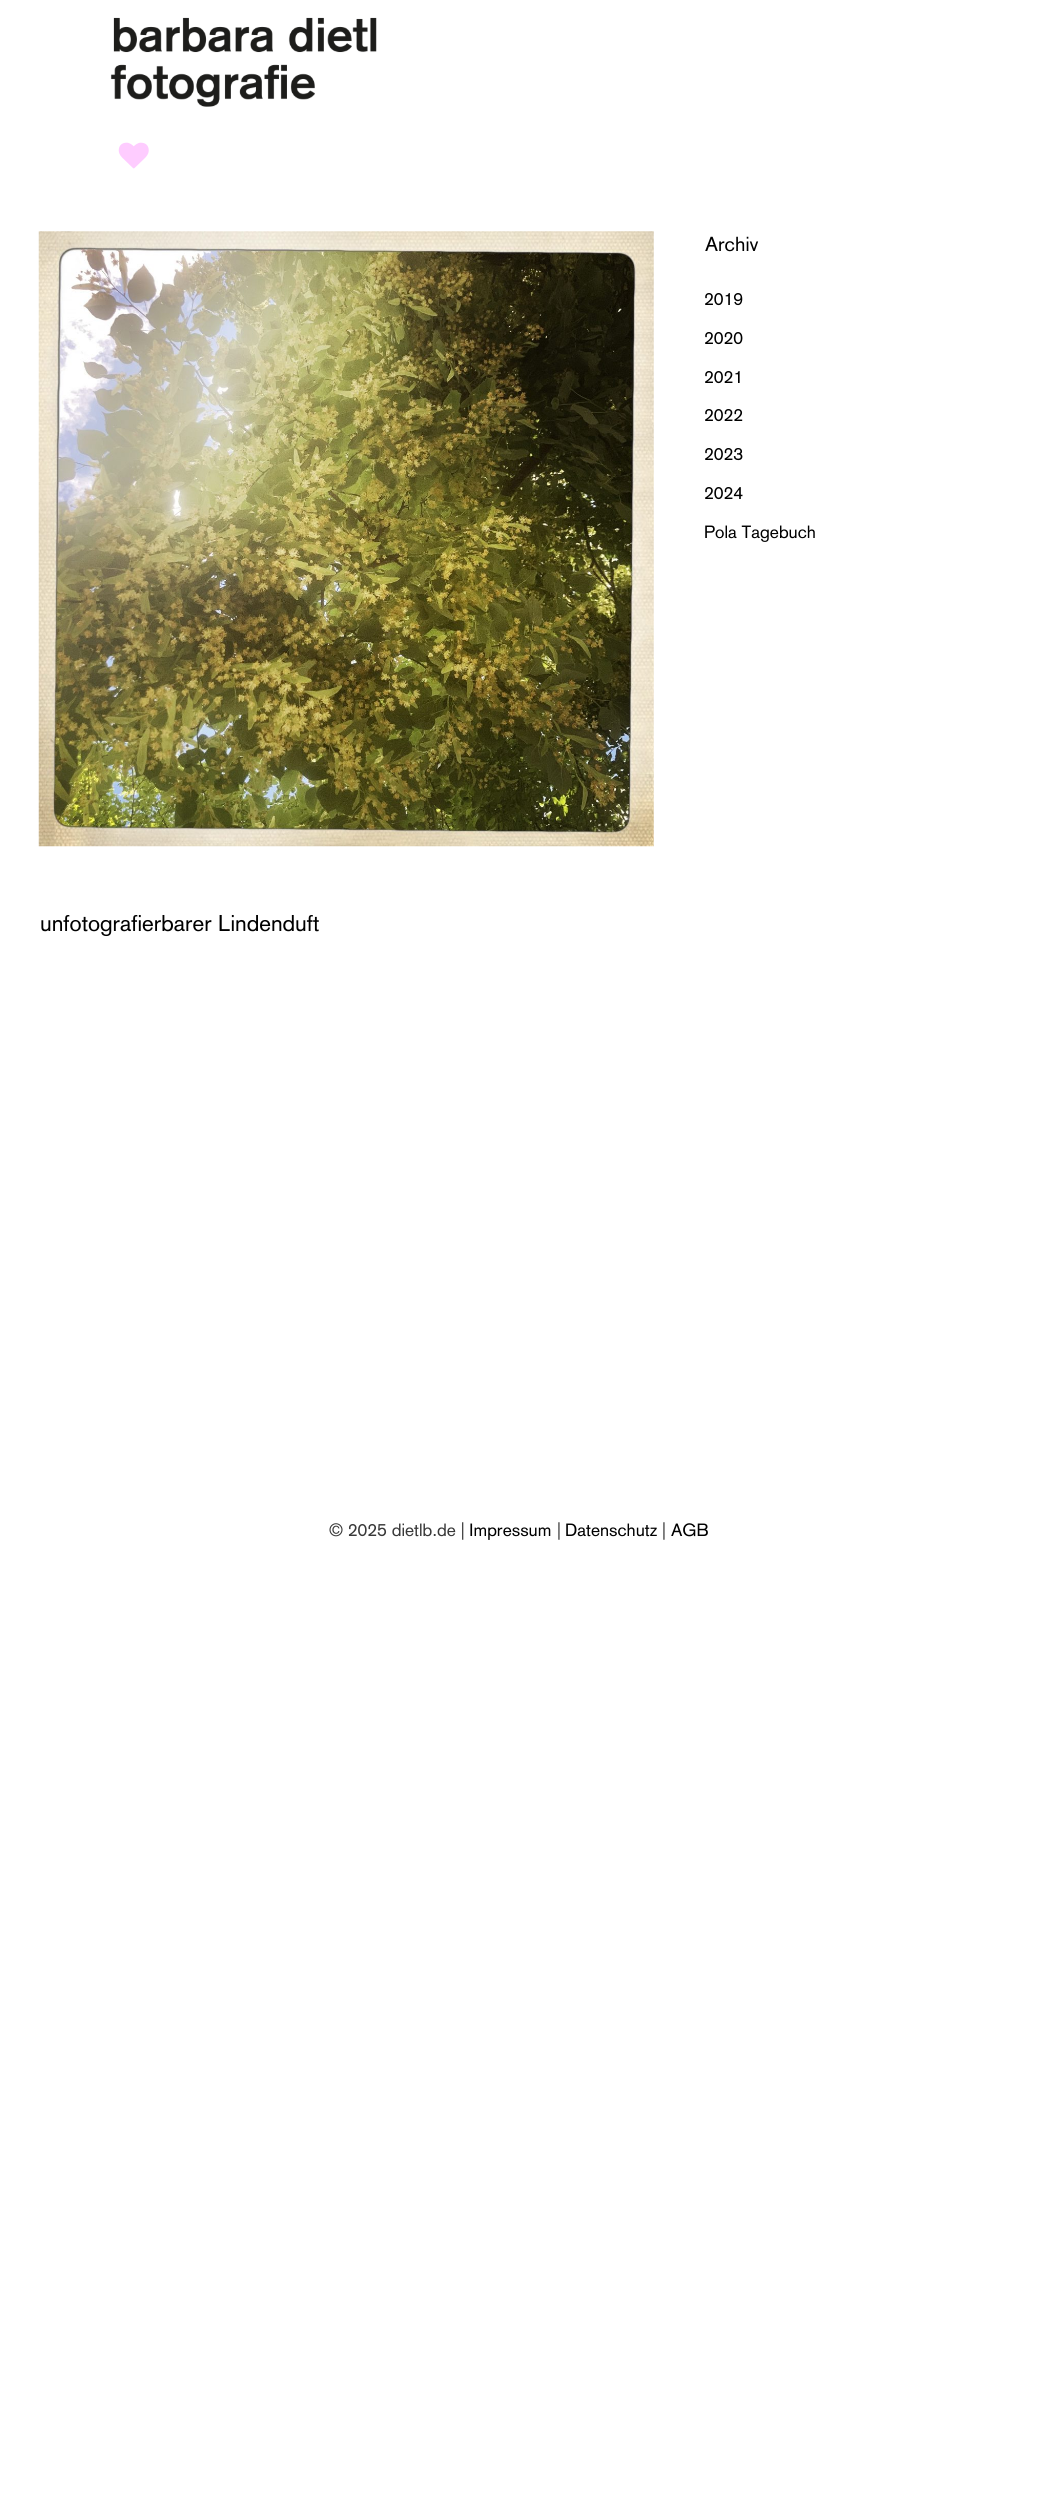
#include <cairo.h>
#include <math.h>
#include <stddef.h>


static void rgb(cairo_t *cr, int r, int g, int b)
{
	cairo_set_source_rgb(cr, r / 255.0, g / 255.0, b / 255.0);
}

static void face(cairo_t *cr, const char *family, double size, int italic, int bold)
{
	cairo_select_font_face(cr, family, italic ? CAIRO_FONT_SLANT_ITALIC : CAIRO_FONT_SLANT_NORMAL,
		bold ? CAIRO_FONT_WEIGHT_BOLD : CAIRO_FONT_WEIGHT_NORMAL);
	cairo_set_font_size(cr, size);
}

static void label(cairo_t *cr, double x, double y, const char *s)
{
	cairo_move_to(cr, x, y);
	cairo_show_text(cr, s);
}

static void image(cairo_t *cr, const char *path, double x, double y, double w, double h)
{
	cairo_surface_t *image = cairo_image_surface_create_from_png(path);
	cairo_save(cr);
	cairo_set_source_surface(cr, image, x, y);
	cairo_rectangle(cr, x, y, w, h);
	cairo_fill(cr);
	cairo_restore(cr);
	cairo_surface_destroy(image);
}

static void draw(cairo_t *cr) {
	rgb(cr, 255, 255, 255);
	cairo_paint(cr);
	image(cr, "image0.png", 110, 17, 267, 90);
	image(cr, "image1.png", 118, 142, 31, 27);
	face(cr, "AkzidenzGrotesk", 20, 0, 0);
	rgb(cr, 0, 0, 0);
	label(cr, 705, 251, "Archiv");
	face(cr, "AkzidenzGrotesk", 17.5, 0, 0);
	label(cr, 704, 305, "2019");
	label(cr, 704, 344, "2020");
	label(cr, 704, 383, "2021");
	label(cr, 704, 421, "2022");
	label(cr, 704, 460, "2023");
	label(cr, 704, 499, "2024");
	label(cr, 704, 538, "Pola Tagebuch");
	image(cr, "image2.png", 38, 231, 616, 616);
	face(cr, "AkzidenzGrotesk", 22.5, 0, 0);
	label(cr, 40, 931, "unfotografierbarer Lindenduft");
	face(cr, "AkzidenzGrotesk", 17.5, 0, 0);
	rgb(cr, 57, 57, 57);
	label(cr, 329, 1536, "© 2025 dietlb.de |");
	rgb(cr, 0, 0, 0);
	label(cr, 469, 1536, "Impressum");
	rgb(cr, 57, 57, 57);
	label(cr, 557, 1536, "|");
	rgb(cr, 0, 0, 0);
	label(cr, 565, 1536, "Datenschutz");
	rgb(cr, 57, 57, 57);
	label(cr, 662, 1536, "|");
	rgb(cr, 0, 0, 0);
	label(cr, 671, 1536, "AGB");
}

int main(void) {
	cairo_surface_t *surface = cairo_image_surface_create(CAIRO_FORMAT_RGB24, 1037, 2517);
	cairo_t *cr = cairo_create(surface);
	cairo_font_options_t *options = cairo_font_options_create();
	cairo_font_options_set_hint_metrics(options, CAIRO_HINT_METRICS_OFF);
	cairo_font_options_set_hint_style(options, CAIRO_HINT_STYLE_NONE);
	cairo_set_font_options(cr, options);
	cairo_set_miter_limit(cr, 4);
	draw(cr);
	cairo_surface_write_to_png(surface, "render.png");
	cairo_font_options_destroy(options);
	cairo_destroy(cr);
	cairo_surface_destroy(surface);
	return 0;
}
